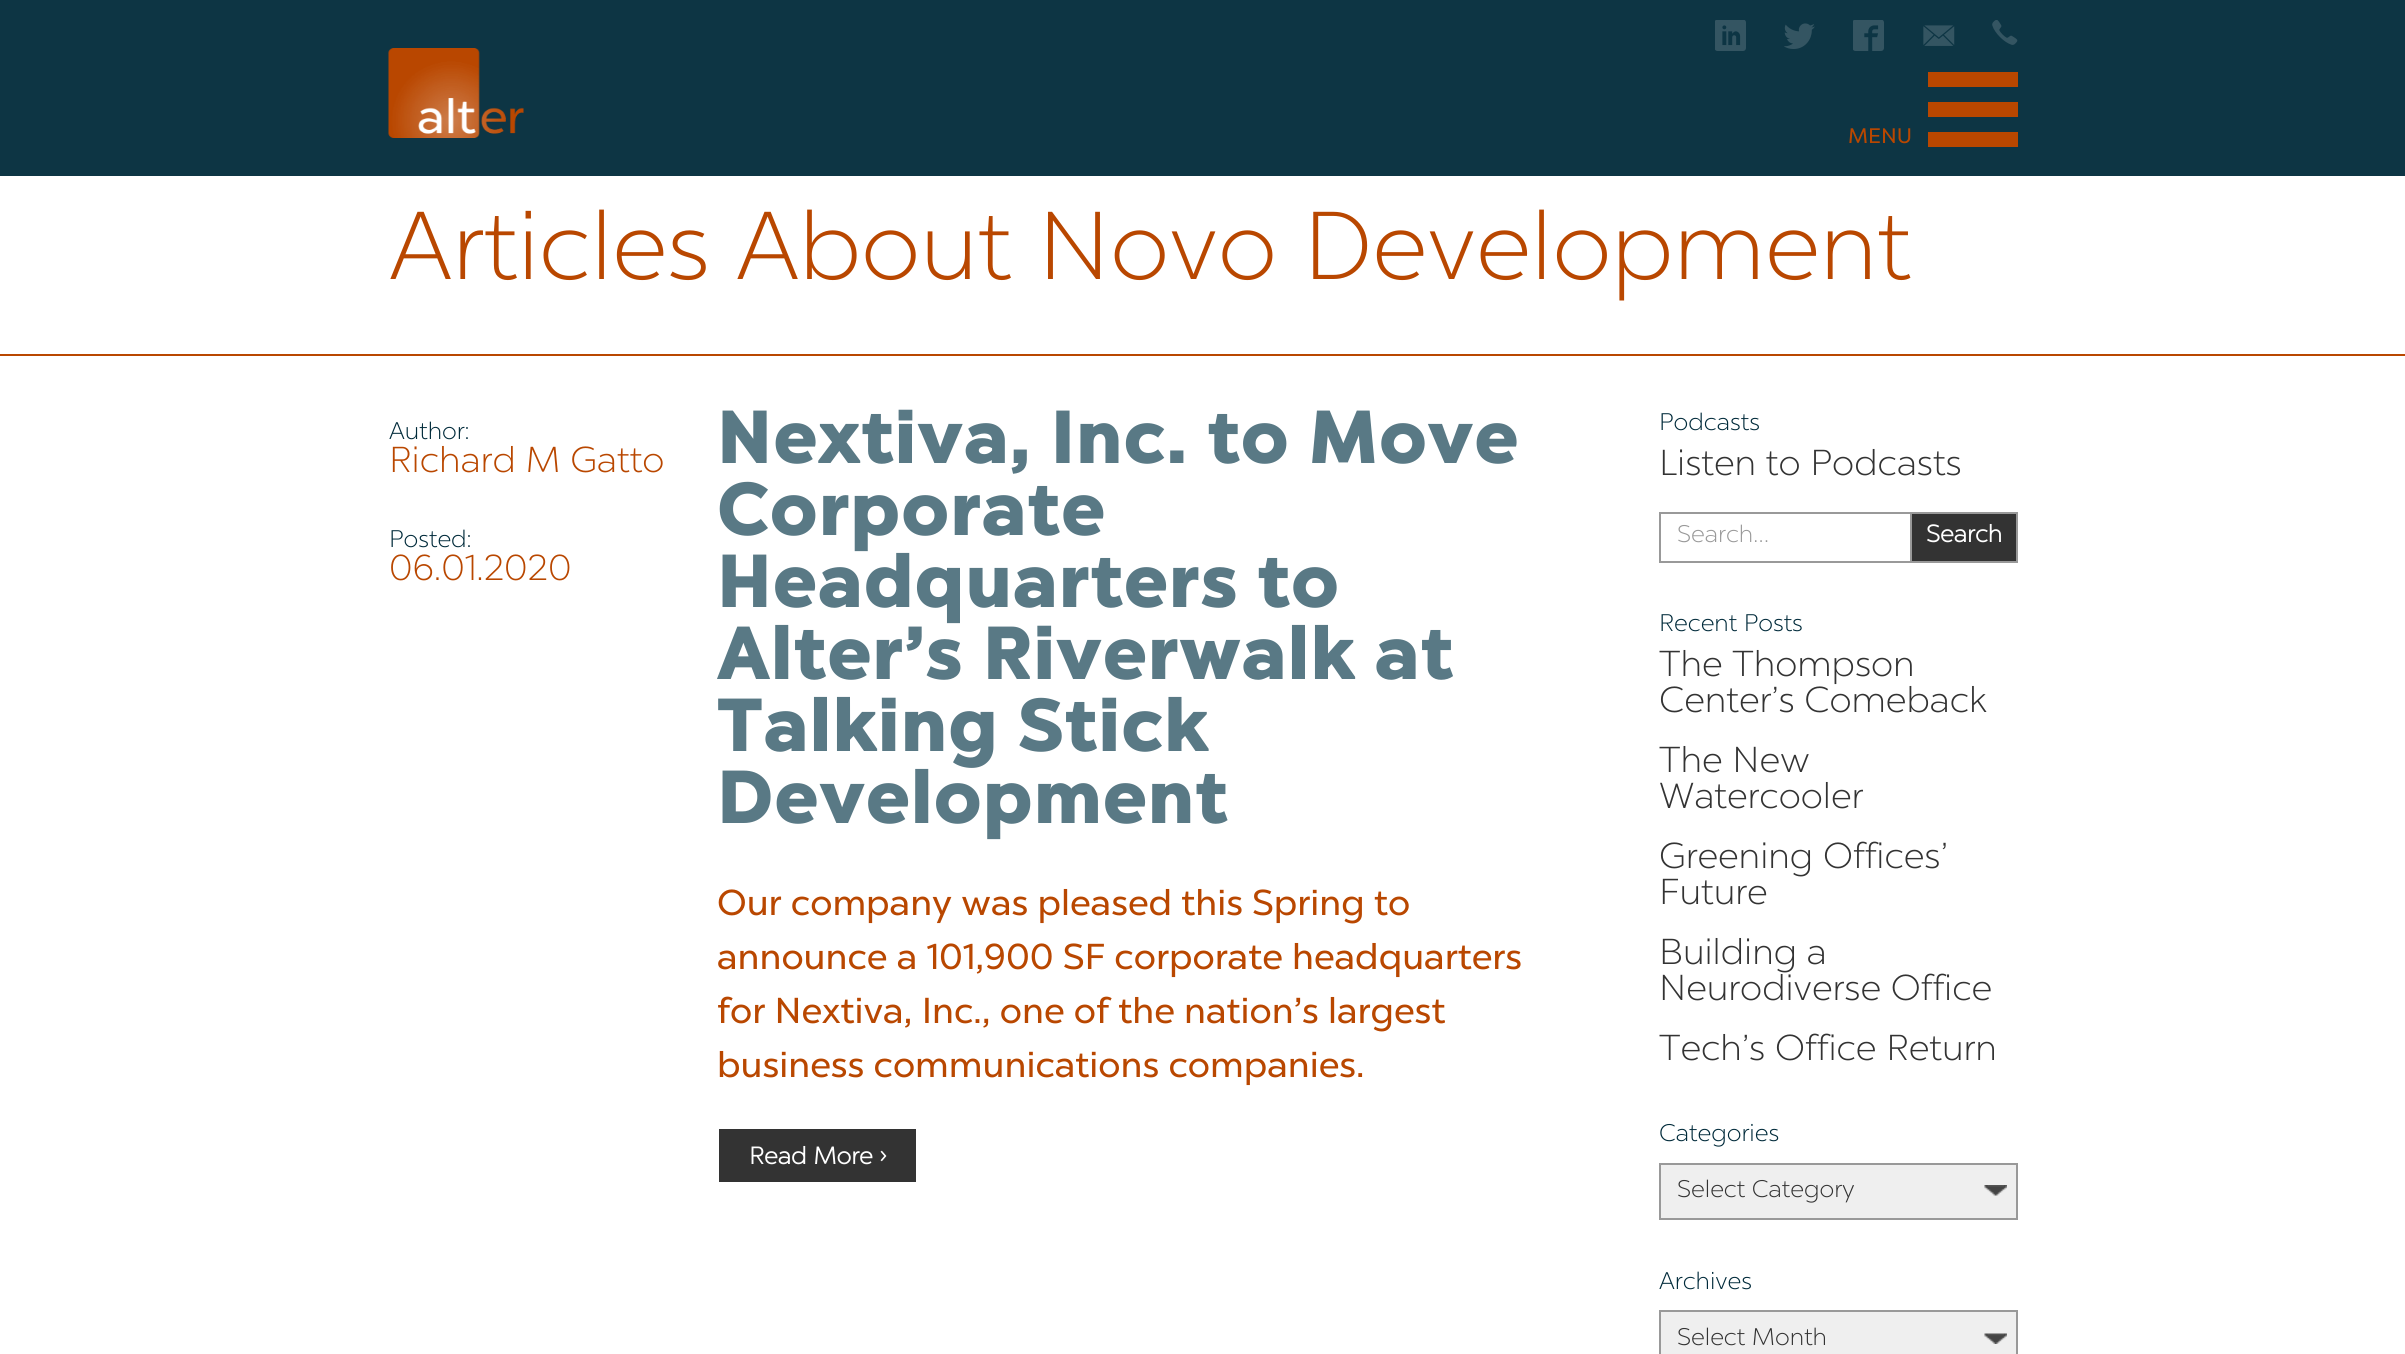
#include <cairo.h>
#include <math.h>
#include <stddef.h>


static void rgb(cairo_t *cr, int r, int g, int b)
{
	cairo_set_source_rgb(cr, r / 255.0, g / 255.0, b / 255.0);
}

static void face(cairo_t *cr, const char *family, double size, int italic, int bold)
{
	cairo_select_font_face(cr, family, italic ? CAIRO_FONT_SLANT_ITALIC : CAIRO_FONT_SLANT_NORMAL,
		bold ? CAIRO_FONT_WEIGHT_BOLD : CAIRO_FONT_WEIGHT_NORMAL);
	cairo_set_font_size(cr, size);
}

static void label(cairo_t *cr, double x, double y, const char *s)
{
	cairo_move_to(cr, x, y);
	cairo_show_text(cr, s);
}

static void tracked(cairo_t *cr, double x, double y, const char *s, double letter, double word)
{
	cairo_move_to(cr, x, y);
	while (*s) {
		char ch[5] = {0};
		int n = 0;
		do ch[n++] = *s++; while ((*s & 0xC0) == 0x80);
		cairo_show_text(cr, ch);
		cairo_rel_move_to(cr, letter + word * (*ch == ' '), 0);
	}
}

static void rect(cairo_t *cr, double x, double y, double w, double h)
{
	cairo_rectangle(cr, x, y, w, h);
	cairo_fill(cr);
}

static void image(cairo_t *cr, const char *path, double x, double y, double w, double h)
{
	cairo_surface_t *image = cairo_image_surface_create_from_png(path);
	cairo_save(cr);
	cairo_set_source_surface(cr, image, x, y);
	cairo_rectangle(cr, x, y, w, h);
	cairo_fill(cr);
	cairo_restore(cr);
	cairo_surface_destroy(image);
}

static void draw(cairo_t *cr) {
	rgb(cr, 255, 255, 255);
	cairo_paint(cr);
	rgb(cr, 13, 53, 68);
	rect(cr, 0, 0, 2405, 176);
	image(cr, "image0.png", 388, 48, 136, 90);
	image(cr, "image1.png", 1715, 20, 31, 31);
	image(cr, "image2.png", 1784, 23, 31, 26);
	image(cr, "image3.png", 1853, 20, 31, 31);
	image(cr, "image4.png", 1923, 25, 32, 21);
	image(cr, "image5.png", 1992, 20, 26, 25);
	face(cr, "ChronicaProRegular", 21, 0, 0);
	rgb(cr, 185, 71, 0);
	label(cr, 1848, 143, "MENU");
	rect(cr, 1928, 132, 90, 15);
	rect(cr, 1928, 72, 90, 15);
	rect(cr, 1928, 102, 90, 15);
	rect(cr, 0, 354, 2405, 2);
	face(cr, "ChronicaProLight", 96, 0, 0);
	label(cr, 389, 279, "Articles About Novo Development");
	face(cr, "ChronicaProLight", 24, 0, 0);
	rgb(cr, 0, 42, 58);
	label(cr, 389, 439, "Author:");
	face(cr, "ChronicaProLight", 36, 0, 0);
	rgb(cr, 185, 71, 0);
	label(cr, 389, 472, "Richard M Gatto");
	face(cr, "ChronicaProLight", 24, 0, 0);
	rgb(cr, 0, 42, 58);
	label(cr, 389, 547, "Posted:");
	face(cr, "ChronicaProLight", 36, 0, 0);
	rgb(cr, 185, 71, 0);
	label(cr, 389, 580, "06.01.2020");
	face(cr, "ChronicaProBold", 72, 0, 1);
	rgb(cr, 89, 121, 133);
	tracked(cr, 717, 463, "Nextiva, Inc. to Move", 3, 0);
	tracked(cr, 717, 535, "Corporate", 3, 0);
	tracked(cr, 717, 607, "Headquarters to", 3, 0);
	tracked(cr, 717, 679, "Alter’s Riverwalk at", 3, 0);
	tracked(cr, 717, 751, "Talking Stick", 3, 0);
	tracked(cr, 717, 823, "Development", 3, 0);
	face(cr, "ChronicaProRegular", 36, 0, 0);
	rgb(cr, 185, 71, 0);
	label(cr, 717, 915, "Our company was pleased this Spring to");
	label(cr, 717, 969, "announce a 101,900 SF corporate headquarters");
	label(cr, 717, 1023, "for Nextiva, Inc., one of the nation’s largest");
	label(cr, 717, 1077, "business communications companies.");
	rgb(cr, 51, 51, 51);
	rect(cr, 719, 1129, 197, 53);
	face(cr, "ChronicaProLight", 24, 0, 1);
	rgb(cr, 255, 255, 255);
	label(cr, 749, 1164, "Read More ›");
	face(cr, "ChronicaProLight", 24, 0, 0);
	rgb(cr, 0, 42, 58);
	label(cr, 1659, 430, "Podcasts");
	face(cr, "ChronicaProLight", 36, 0, 0);
	rgb(cr, 51, 51, 51);
	label(cr, 1659, 475, "Listen to Podcasts");
	rgb(cr, 153, 153, 153);
	rect(cr, 1659, 512, 251, 2);
	rect(cr, 1659, 561, 251, 2);
	rect(cr, 1659, 512, 2, 51);
	face(cr, "ChronicaProLight", 24, 0, 0);
	label(cr, 1677, 542, "Search…");
	rgb(cr, 51, 51, 51);
	cairo_rectangle(cr, 1911, 513, 106, 49);
	cairo_fill_preserve(cr);
	rgb(cr, 153, 153, 153);
	cairo_stroke(cr);
	face(cr, "ChronicaProLight", 24, 0, 1);
	rgb(cr, 255, 255, 255);
	label(cr, 1926, 542, "Search");
	face(cr, "ChronicaProLight", 24, 0, 0);
	rgb(cr, 0, 42, 58);
	label(cr, 1659, 631, "Recent Posts");
	face(cr, "ChronicaProLight", 36, 0, 0);
	rgb(cr, 51, 51, 51);
	label(cr, 1659, 676, "The Thompson");
	label(cr, 1659, 712, "Center’s Comeback");
	label(cr, 1659, 772, "The New");
	label(cr, 1659, 808, "Watercooler");
	label(cr, 1659, 868, "Greening Offices’");
	label(cr, 1659, 904, "Future");
	label(cr, 1659, 964, "Building a");
	label(cr, 1659, 1000, "Neurodiverse Office");
	label(cr, 1659, 1060, "Tech’s Office Return");
	face(cr, "ChronicaProLight", 24, 0, 0);
	rgb(cr, 0, 42, 58);
	label(cr, 1659, 1141, "Categories");
	rgb(cr, 239, 239, 239);
	rect(cr, 1661, 1165, 355, 53);
	image(cr, "image6.png", 1984, 1185, 23, 11);
	cairo_rectangle(cr, 1660, 1164, 357, 55);
	rgb(cr, 153, 153, 153);
	cairo_stroke(cr);
	rgb(cr, 51, 51, 51);
	label(cr, 1677, 1197, "Select Category");
	rgb(cr, 0, 42, 58);
	label(cr, 1659, 1289, "Archives");
	rgb(cr, 239, 239, 239);
	rect(cr, 1661, 1312, 355, 42);
	image(cr, "image7.png", 1984, 1333, 23, 11);
	cairo_rectangle(cr, 1660, 1311, 357, 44);
	rgb(cr, 153, 153, 153);
	cairo_stroke(cr);
	rgb(cr, 51, 51, 51);
	label(cr, 1677, 1345, "Select Month");
}

int main(void) {
	cairo_surface_t *surface = cairo_image_surface_create(CAIRO_FORMAT_RGB24, 2405, 1354);
	cairo_t *cr = cairo_create(surface);
	cairo_font_options_t *options = cairo_font_options_create();
	cairo_font_options_set_hint_metrics(options, CAIRO_HINT_METRICS_OFF);
	cairo_font_options_set_hint_style(options, CAIRO_HINT_STYLE_NONE);
	cairo_set_font_options(cr, options);
	cairo_set_miter_limit(cr, 4);
	draw(cr);
	cairo_surface_write_to_png(surface, "render.png");
	cairo_font_options_destroy(options);
	cairo_destroy(cr);
	cairo_surface_destroy(surface);
	return 0;
}
